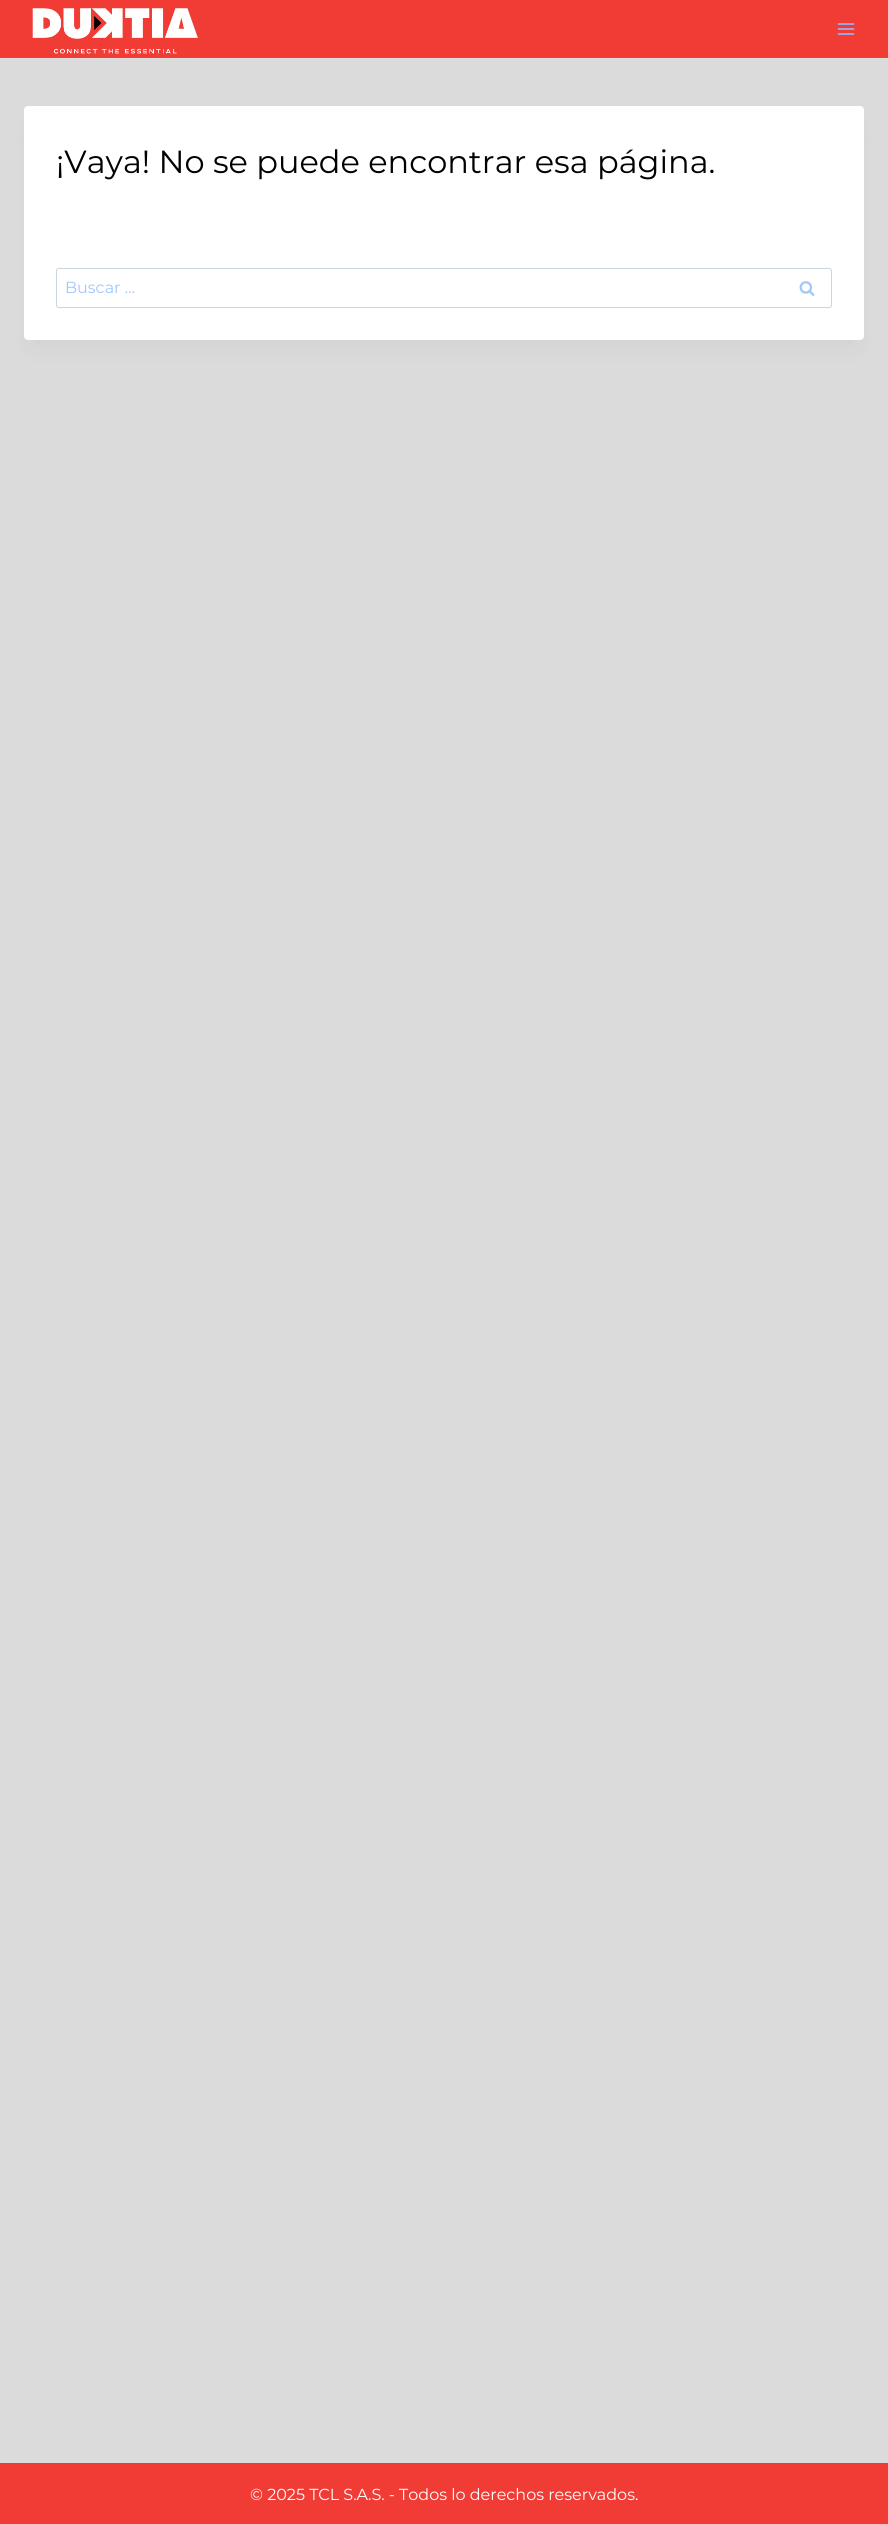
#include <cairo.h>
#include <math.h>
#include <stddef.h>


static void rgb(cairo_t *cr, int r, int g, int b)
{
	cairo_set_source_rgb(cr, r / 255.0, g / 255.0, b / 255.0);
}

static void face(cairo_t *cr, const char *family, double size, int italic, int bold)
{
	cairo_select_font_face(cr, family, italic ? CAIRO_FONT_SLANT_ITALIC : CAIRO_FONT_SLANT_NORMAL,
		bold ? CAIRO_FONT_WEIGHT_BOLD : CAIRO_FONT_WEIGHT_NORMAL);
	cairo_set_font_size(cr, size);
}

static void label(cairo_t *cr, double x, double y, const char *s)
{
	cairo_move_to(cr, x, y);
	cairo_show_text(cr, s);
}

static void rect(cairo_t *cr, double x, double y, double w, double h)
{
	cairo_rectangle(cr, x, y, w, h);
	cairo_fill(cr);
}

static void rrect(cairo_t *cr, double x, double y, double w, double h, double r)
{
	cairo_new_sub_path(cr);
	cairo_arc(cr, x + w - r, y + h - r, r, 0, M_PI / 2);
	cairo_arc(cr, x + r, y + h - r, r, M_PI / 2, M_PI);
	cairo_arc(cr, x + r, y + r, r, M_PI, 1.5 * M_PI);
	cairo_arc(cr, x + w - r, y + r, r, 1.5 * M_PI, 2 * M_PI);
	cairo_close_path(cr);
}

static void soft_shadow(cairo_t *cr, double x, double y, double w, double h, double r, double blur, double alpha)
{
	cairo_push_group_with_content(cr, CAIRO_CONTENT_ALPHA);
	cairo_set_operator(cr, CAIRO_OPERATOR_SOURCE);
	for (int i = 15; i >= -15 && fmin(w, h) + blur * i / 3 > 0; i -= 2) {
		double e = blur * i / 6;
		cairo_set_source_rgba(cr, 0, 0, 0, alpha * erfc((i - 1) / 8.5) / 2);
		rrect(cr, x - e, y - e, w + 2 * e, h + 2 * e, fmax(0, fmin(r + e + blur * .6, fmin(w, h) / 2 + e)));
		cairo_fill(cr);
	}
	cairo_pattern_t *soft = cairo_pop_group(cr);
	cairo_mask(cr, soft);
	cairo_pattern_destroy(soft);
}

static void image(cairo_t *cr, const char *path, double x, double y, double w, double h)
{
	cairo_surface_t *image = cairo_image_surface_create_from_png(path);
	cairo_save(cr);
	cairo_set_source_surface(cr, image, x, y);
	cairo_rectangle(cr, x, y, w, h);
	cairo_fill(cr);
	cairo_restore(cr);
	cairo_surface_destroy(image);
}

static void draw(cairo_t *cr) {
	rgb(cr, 219, 219, 219);
	cairo_paint(cr);
	rgb(cr, 241, 60, 54);
	rect(cr, 0, 0, 888, 58);
	image(cr, "image0.png", 32, 8, 166, 46);
	image(cr, "image1.png", 837, 23, 18, 12);
	rgb(cr, 0, 0, 0);
	soft_shadow(cr, 34, 131, 820, 214, 0, 12.5, 0.05);
	rgb(cr, 255, 255, 255);
	rrect(cr, 24, 106, 840, 234, 4);
	cairo_fill(cr);
	face(cr, "Montserrat", 32, 0, 0);
	rgb(cr, 0, 0, 0);
	label(cr, 56, 173, "¡Vaya! No se puede encontrar esa página.");
	rrect(cr, 56.5, 268.5, 775, 39, 2.5);
	rgb(cr, 203, 213, 224);
	cairo_set_line_width(cr, 1);
	cairo_stroke(cr);
	face(cr, "Montserrat", 16, 0, 0);
	rgb(cr, 161, 199, 253);
	label(cr, 65, 293, "Buscar …");
	image(cr, "image2.png", 799, 281, 16, 15);
	rgb(cr, 241, 60, 54);
	rect(cr, 0, 2463, 888, 61);
	rgb(cr, 255, 255, 255);
	label(cr, 250, 2500, "© 2025 TCL S.A.S. - Todos lo derechos reservados.");
}

int main(void) {
	cairo_surface_t *surface = cairo_image_surface_create(CAIRO_FORMAT_RGB24, 888, 2524);
	cairo_t *cr = cairo_create(surface);
	cairo_font_options_t *options = cairo_font_options_create();
	cairo_font_options_set_hint_metrics(options, CAIRO_HINT_METRICS_OFF);
	cairo_font_options_set_hint_style(options, CAIRO_HINT_STYLE_NONE);
	cairo_set_font_options(cr, options);
	cairo_set_miter_limit(cr, 4);
	draw(cr);
	cairo_surface_write_to_png(surface, "render.png");
	cairo_font_options_destroy(options);
	cairo_destroy(cr);
	cairo_surface_destroy(surface);
	return 0;
}
